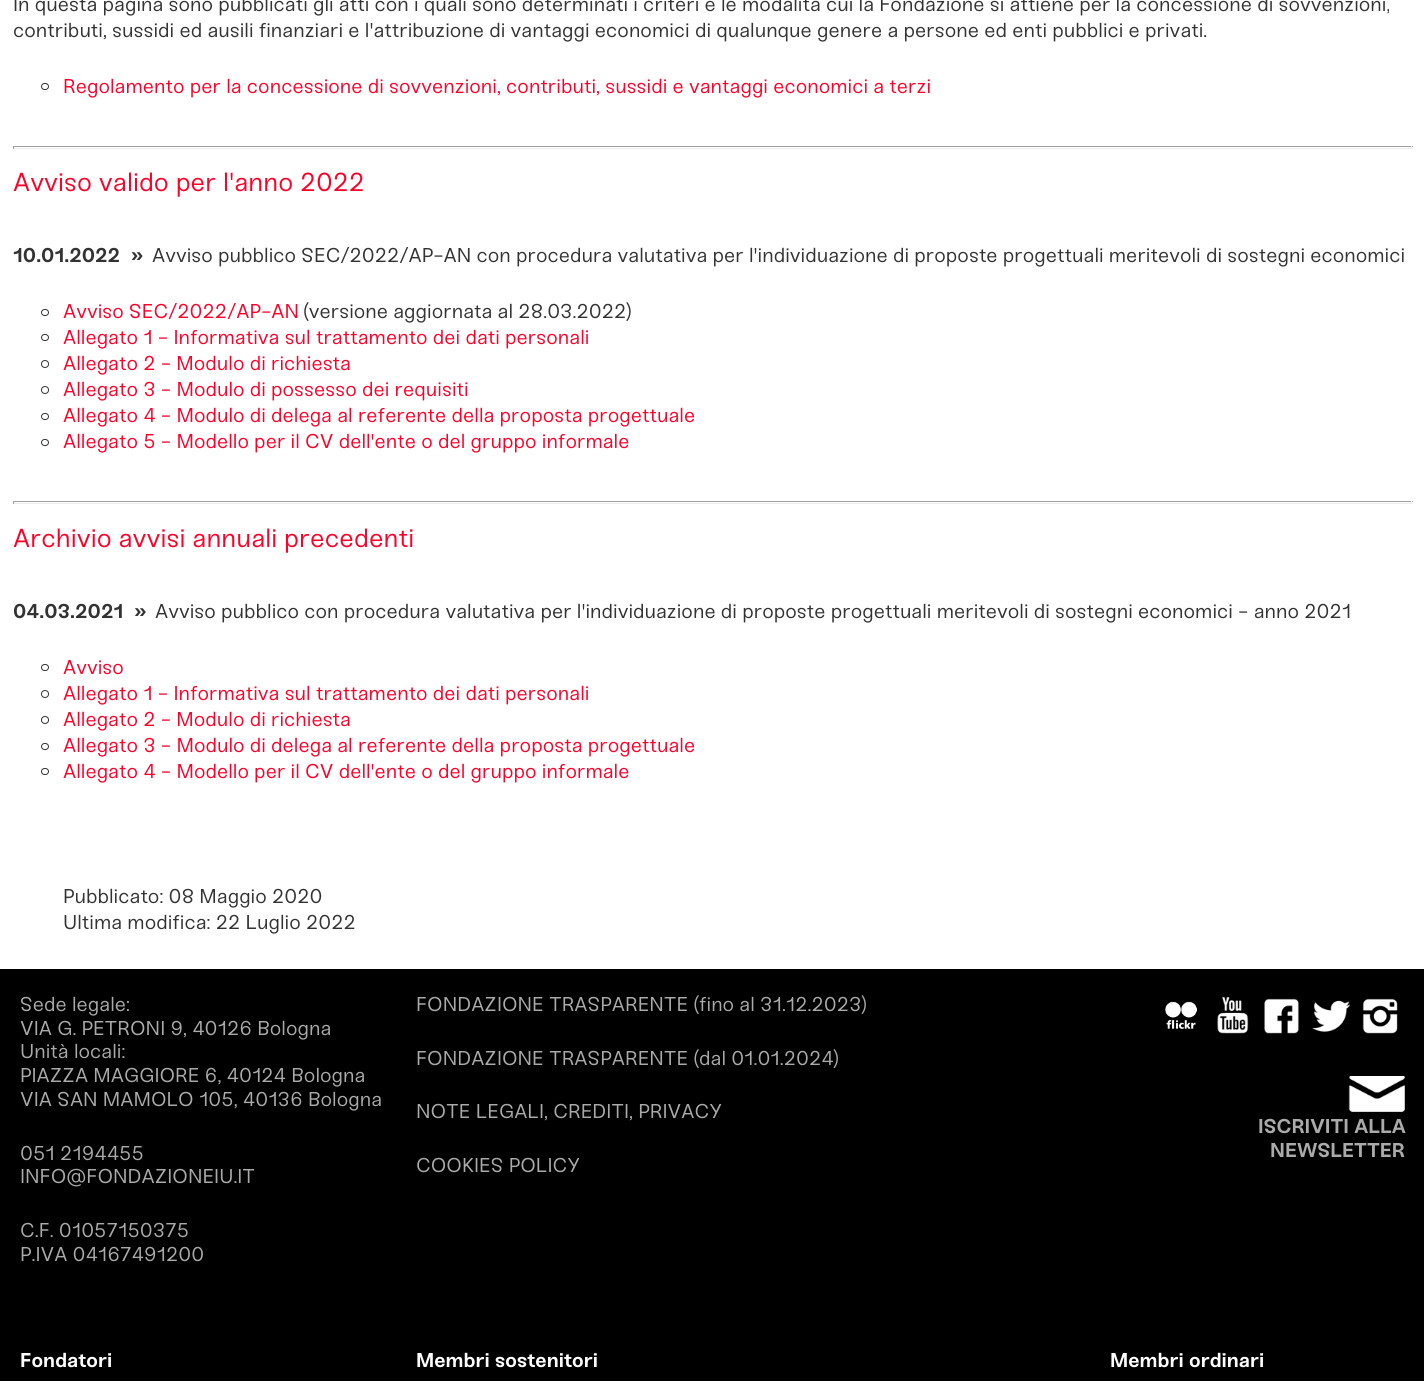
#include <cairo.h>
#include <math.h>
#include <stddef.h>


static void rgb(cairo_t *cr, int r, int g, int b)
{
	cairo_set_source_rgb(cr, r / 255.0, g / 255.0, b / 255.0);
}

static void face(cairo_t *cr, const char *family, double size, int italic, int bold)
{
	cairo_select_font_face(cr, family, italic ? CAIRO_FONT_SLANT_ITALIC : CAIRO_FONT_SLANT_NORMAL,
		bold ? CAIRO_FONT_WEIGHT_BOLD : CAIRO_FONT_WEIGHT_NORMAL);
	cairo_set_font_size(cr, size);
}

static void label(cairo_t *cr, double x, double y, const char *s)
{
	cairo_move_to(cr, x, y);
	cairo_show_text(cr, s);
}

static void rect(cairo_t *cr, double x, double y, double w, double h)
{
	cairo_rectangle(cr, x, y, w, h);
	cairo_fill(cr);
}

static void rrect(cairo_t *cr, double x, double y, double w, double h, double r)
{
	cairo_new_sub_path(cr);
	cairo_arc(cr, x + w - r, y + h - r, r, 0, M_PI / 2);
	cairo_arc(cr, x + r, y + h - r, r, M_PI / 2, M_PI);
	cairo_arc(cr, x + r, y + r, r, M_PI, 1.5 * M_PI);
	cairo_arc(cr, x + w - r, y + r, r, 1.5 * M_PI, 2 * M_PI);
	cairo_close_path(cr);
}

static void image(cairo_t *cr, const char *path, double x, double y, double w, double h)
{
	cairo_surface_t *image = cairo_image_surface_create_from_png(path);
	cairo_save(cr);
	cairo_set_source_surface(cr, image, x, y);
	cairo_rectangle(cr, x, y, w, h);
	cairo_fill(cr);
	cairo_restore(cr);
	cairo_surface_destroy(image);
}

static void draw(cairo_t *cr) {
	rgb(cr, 255, 255, 255);
	cairo_paint(cr);
	face(cr, "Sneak", 20, 0, 0);
	rgb(cr, 51, 51, 51);
	label(cr, 13, 11, "In questa pagina sono pubblicati gli atti con i quali sono determinati i criteri e le modalità cui la Fondazione si attiene per la concessione di sovvenzioni,");
	label(cr, 13, 37, "contributi, sussidi ed ausili finanziari e l'attribuzione di vantaggi economici di qualunque genere a persone ed enti pubblici e privati.");
	rrect(cr, 41.5, 83.5, 7, 6, 3);
	cairo_set_line_width(cr, 1);
	cairo_stroke(cr);
	rgb(cr, 255, 0, 40);
	label(cr, 63, 93, "Regolamento per la concessione di sovvenzioni, contributi, sussidi e vantaggi economici a terzi");
	rgb(cr, 159, 159, 159);
	rect(cr, 13, 146, 1400, 1);
	rgb(cr, 238, 238, 238);
	rect(cr, 1411, 146, 1, 3);
	rect(cr, 13, 148, 1400, 1);
	rgb(cr, 159, 159, 159);
	rect(cr, 13, 146, 1, 3);
	face(cr, "Sneak", 26, 0, 0);
	rgb(cr, 255, 0, 40);
	label(cr, 13, 191, "Avviso valido per l'anno 2022");
	face(cr, "Sneak", 20, 0, 1);
	rgb(cr, 51, 51, 51);
	label(cr, 13, 262, "10.01.2022  »");
	face(cr, "Sneak", 20, 0, 0);
	label(cr, 152, 262, "Avviso pubblico SEC/2022/AP-AN con procedura valutativa per l'individuazione di proposte progettuali meritevoli di sostegni economici");
	rrect(cr, 41.5, 309.5, 7, 6, 3);
	cairo_stroke(cr);
	rgb(cr, 255, 0, 40);
	label(cr, 63, 318, "Avviso SEC/2022/AP-AN");
	rgb(cr, 51, 51, 51);
	label(cr, 303, 318, "(versione aggiornata al 28.03.2022)");
	rrect(cr, 41.5, 334.5, 7, 6, 3);
	cairo_stroke(cr);
	rgb(cr, 255, 0, 40);
	label(cr, 63, 344, "Allegato 1 - Informativa sul trattamento dei dati personali");
	cairo_new_path(cr);
	cairo_arc(cr, 45, 364, 3.5, 0, 2 * M_PI);
	rgb(cr, 51, 51, 51);
	cairo_stroke(cr);
	rgb(cr, 255, 0, 40);
	label(cr, 63, 370, "Allegato 2 - Modulo di richiesta");
	cairo_new_path(cr);
	cairo_arc(cr, 45, 390, 3.5, 0, 2 * M_PI);
	rgb(cr, 51, 51, 51);
	cairo_stroke(cr);
	rgb(cr, 255, 0, 40);
	label(cr, 63, 396, "Allegato 3 - Modulo di possesso dei requisiti");
	rrect(cr, 41.5, 413.5, 7, 6, 3);
	rgb(cr, 51, 51, 51);
	cairo_stroke(cr);
	rgb(cr, 255, 0, 40);
	label(cr, 63, 422, "Allegato 4 - Modulo di delega al referente della proposta progettuale");
	rrect(cr, 41.5, 439.5, 7, 6, 3);
	rgb(cr, 51, 51, 51);
	cairo_stroke(cr);
	rgb(cr, 255, 0, 40);
	label(cr, 63, 448, "Allegato 5 - Modello per il CV dell'ente o del gruppo informale");
	rgb(cr, 159, 159, 159);
	rect(cr, 13, 501, 1400, 1);
	rgb(cr, 238, 238, 238);
	rect(cr, 1411, 501, 1, 3);
	rect(cr, 13, 503, 1400, 1);
	rgb(cr, 159, 159, 159);
	rect(cr, 13, 501, 1, 3);
	face(cr, "Sneak", 26, 0, 0);
	rgb(cr, 255, 0, 40);
	label(cr, 13, 547, "Archivio avvisi annuali precedenti");
	face(cr, "Sneak", 20, 0, 1);
	rgb(cr, 51, 51, 51);
	label(cr, 13, 618, "04.03.2021  »");
	face(cr, "Sneak", 20, 0, 0);
	label(cr, 155, 618, "Avviso pubblico con procedura valutativa per l'individuazione di proposte progettuali meritevoli di sostegni economici - anno 2021");
	rrect(cr, 41.5, 664.5, 7, 6, 3);
	cairo_stroke(cr);
	rgb(cr, 255, 0, 40);
	label(cr, 63, 674, "Avviso");
	cairo_new_path(cr);
	cairo_arc(cr, 45, 694, 3.5, 0, 2 * M_PI);
	rgb(cr, 51, 51, 51);
	cairo_stroke(cr);
	rgb(cr, 255, 0, 40);
	label(cr, 63, 700, "Allegato 1 - Informativa sul trattamento dei dati personali");
	cairo_new_path(cr);
	cairo_arc(cr, 45, 720, 3.5, 0, 2 * M_PI);
	rgb(cr, 51, 51, 51);
	cairo_stroke(cr);
	rgb(cr, 255, 0, 40);
	label(cr, 63, 726, "Allegato 2 - Modulo di richiesta");
	rrect(cr, 41.5, 743.5, 7, 6, 3);
	rgb(cr, 51, 51, 51);
	cairo_stroke(cr);
	rgb(cr, 255, 0, 40);
	label(cr, 63, 752, "Allegato 3 - Modulo di delega al referente della proposta progettuale");
	rrect(cr, 41.5, 768.5, 7, 6, 3);
	rgb(cr, 51, 51, 51);
	cairo_stroke(cr);
	rgb(cr, 255, 0, 40);
	label(cr, 63, 778, "Allegato 4 - Modello per il CV dell'ente o del gruppo informale");
	rgb(cr, 51, 51, 51);
	label(cr, 63, 903, "Pubblicato: 08 Maggio 2020");
	label(cr, 63, 929, "Ultima modifica: 22 Luglio 2022");
	rgb(cr, 0, 0, 0);
	rect(cr, 0, 969, 1424, 412);
	rgb(cr, 170, 170, 170);
	label(cr, 20, 1011, "Sede legale:");
	label(cr, 20, 1035, "VIA G. PETRONI 9, 40126 Bologna");
	label(cr, 20, 1058, "Unità locali:");
	label(cr, 20, 1082, "PIAZZA MAGGIORE 6, 40124 Bologna");
	label(cr, 20, 1106, "VIA SAN MAMOLO 105, 40136 Bologna");
	label(cr, 20, 1160, "051 2194455");
	label(cr, 20, 1183, "INFO@FONDAZIONEIU.IT");
	label(cr, 20, 1237, "C.F. 01057150375");
	label(cr, 20, 1261, "P.IVA 04167491200");
	label(cr, 416, 1011, "FONDAZIONE TRASPARENTE (fino al 31.12.2023)");
	label(cr, 416, 1065, "FONDAZIONE TRASPARENTE (dal 01.01.2024)");
	label(cr, 416, 1118, "NOTE LEGALI, CREDITI, PRIVACY");
	label(cr, 416, 1172, "COOKIES POLICY");
	image(cr, "image0.png", 1165, 1001, 32, 28);
	image(cr, "image1.png", 1217, 997, 32, 37);
	image(cr, "image2.png", 1264, 998, 35, 36);
	image(cr, "image3.png", 1312, 1000, 38, 32);
	image(cr, "image4.png", 1362, 998, 36, 36);
	image(cr, "image5.png", 1348, 1076, 57, 36);
	face(cr, "Sneak", 20, 0, 1);
	label(cr, 1258, 1133, "ISCRIVITI ALLA");
	label(cr, 1270, 1157, "NEWSLETTER");
	rgb(cr, 255, 255, 255);
	label(cr, 20, 1367, "Fondatori");
	label(cr, 416, 1367, "Membri sostenitori");
	label(cr, 1110, 1367, "Membri ordinari");
}

int main(void) {
	cairo_surface_t *surface = cairo_image_surface_create(CAIRO_FORMAT_RGB24, 1424, 1381);
	cairo_t *cr = cairo_create(surface);
	cairo_font_options_t *options = cairo_font_options_create();
	cairo_font_options_set_hint_metrics(options, CAIRO_HINT_METRICS_OFF);
	cairo_font_options_set_hint_style(options, CAIRO_HINT_STYLE_NONE);
	cairo_set_font_options(cr, options);
	cairo_set_miter_limit(cr, 4);
	draw(cr);
	cairo_surface_write_to_png(surface, "render.png");
	cairo_font_options_destroy(options);
	cairo_destroy(cr);
	cairo_surface_destroy(surface);
	return 0;
}
